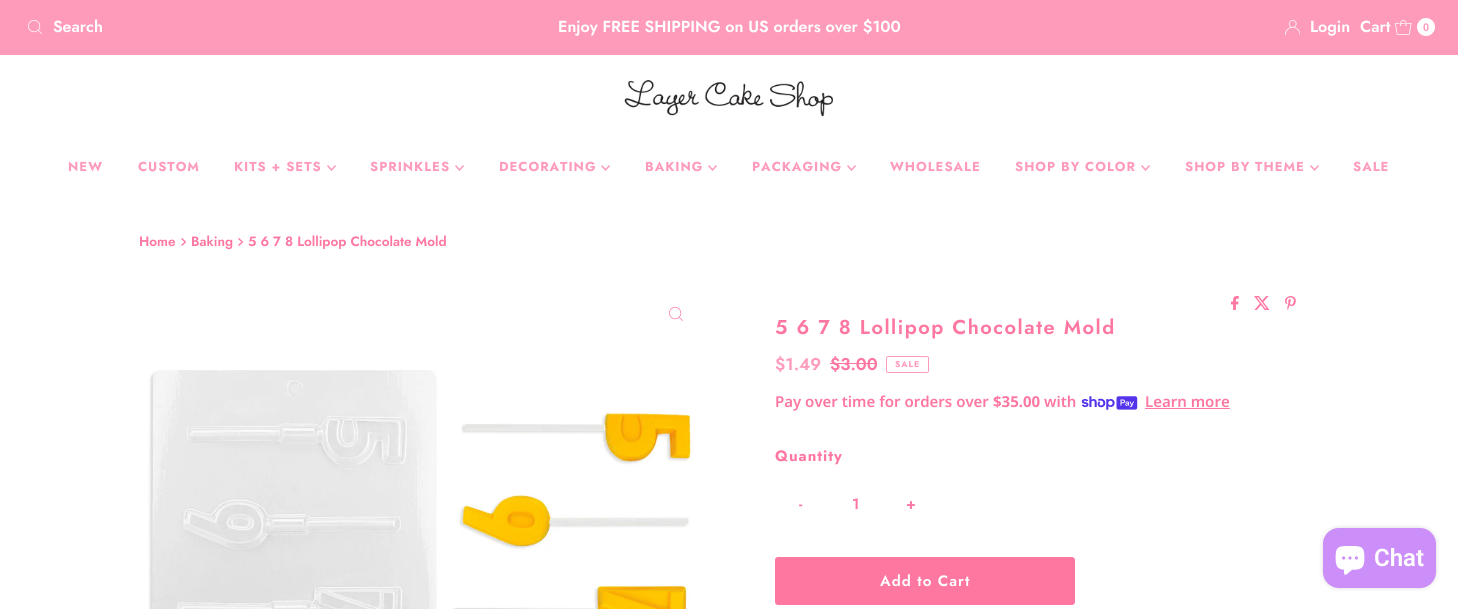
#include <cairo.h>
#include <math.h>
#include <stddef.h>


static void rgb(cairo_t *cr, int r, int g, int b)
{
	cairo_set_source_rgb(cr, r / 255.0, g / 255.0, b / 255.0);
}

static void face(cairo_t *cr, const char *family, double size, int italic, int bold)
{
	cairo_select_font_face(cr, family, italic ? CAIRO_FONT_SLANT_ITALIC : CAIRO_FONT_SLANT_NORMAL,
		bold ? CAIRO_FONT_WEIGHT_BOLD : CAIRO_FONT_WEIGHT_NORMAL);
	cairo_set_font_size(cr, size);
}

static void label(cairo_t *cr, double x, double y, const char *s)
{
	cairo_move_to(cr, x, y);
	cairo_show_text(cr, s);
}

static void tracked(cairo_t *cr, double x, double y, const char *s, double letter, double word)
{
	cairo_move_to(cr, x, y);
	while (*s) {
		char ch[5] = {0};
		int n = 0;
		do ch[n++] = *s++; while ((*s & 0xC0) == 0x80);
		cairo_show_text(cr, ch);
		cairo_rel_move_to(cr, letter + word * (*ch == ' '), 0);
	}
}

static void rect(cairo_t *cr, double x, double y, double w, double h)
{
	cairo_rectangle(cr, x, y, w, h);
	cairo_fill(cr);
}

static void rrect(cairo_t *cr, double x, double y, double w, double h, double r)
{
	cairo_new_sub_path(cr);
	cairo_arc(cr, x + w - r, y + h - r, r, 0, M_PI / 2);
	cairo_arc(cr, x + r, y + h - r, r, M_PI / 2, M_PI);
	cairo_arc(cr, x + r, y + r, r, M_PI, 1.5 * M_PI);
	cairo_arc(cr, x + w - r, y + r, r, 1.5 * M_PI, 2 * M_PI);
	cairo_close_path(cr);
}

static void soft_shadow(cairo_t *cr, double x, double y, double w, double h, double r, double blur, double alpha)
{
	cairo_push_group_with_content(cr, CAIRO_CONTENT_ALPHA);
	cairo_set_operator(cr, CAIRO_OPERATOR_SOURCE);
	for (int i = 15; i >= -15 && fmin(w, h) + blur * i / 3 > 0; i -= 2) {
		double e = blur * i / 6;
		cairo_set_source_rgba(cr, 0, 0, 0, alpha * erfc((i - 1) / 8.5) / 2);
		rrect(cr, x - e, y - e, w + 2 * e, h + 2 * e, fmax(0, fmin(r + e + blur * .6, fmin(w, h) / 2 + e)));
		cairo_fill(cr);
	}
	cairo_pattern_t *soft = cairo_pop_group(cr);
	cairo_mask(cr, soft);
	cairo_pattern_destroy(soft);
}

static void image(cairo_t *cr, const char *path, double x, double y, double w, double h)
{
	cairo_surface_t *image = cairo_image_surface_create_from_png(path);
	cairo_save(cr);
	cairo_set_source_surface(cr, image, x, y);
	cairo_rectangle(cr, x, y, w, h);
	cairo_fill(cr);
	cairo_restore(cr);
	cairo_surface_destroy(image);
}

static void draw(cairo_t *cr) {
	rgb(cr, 255, 255, 255);
	cairo_paint(cr);
	rgb(cr, 254, 155, 186);
	rect(cr, 0, 0, 1458, 55);
	image(cr, "image0.png", 28, 20, 14, 14);
	face(cr, "Jost SemiBold", 16, 0, 0);
	rgb(cr, 255, 255, 255);
	label(cr, 53, 32, "Search");
	label(cr, 558, 32, "Enjoy FREE SHIPPING on US orders over $100");
	image(cr, "image1.png", 1285, 20, 15, 15);
	label(cr, 1310, 32, "Login");
	label(cr, 1360, 32, "Cart");
	image(cr, "image2.png", 1395, 20, 17, 15);
	cairo_arc(cr, 1426, 27, 9, 0, 2 * M_PI);
	cairo_fill(cr);
	face(cr, "Liberation Sans", 11, 0, 1);
	rgb(cr, 254, 155, 186);
	label(cr, 1423, 31, "0");
	image(cr, "image3.png", 624, 80, 209, 37);
	face(cr, "Jost", 13, 0, 1);
	tracked(cr, 68, 171, "NEW", 1, 0);
	tracked(cr, 138, 171, "CUSTOM", 1, 0);
	tracked(cr, 234, 171, "KITS + SETS", 1, 0);
	image(cr, "image4.png", 327, 165, 9, 6);
	tracked(cr, 370, 171, "SPRINKLES", 1, 0);
	image(cr, "image4.png", 455, 165, 9, 6);
	tracked(cr, 499, 171, "DECORATING", 1, 0);
	image(cr, "image4.png", 601, 165, 9, 6);
	tracked(cr, 645, 171, "BAKING", 1, 0);
	image(cr, "image4.png", 708, 165, 9, 6);
	tracked(cr, 752, 171, "PACKAGING", 1, 0);
	image(cr, "image4.png", 847, 165, 9, 6);
	tracked(cr, 890, 171, "WHOLESALE", 1, 0);
	tracked(cr, 1015, 171, "SHOP BY COLOR", 1, 0);
	image(cr, "image4.png", 1141, 165, 9, 6);
	tracked(cr, 1185, 171, "SHOP BY THEME", 1, 0);
	image(cr, "image4.png", 1310, 165, 9, 6);
	tracked(cr, 1353, 171, "SALE", 1, 0);
	face(cr, "Jost SemiBold", 13.5, 0, 0);
	rgb(cr, 254, 119, 161);
	label(cr, 139, 246, "Home");
	image(cr, "image5.png", 181, 238, 5, 8);
	label(cr, 191, 246, "Baking");
	image(cr, "image5.png", 238, 238, 5, 8);
	label(cr, 248, 246, "5 6 7 8 Lollipop Chocolate Mold");
	image(cr, "image6.png", 669, 307, 14, 14);
	image(cr, "image7.png", 148, 370, 543, 239);
	image(cr, "image8.png", 1231, 296, 8, 14);
	image(cr, "image9.png", 1254, 296, 16, 14);
	image(cr, "image10.png", 1285, 296, 11, 14);
	face(cr, "Jost SemiBold", 20, 0, 0);
	tracked(cr, 775, 334, "5 6 7 8 Lollipop Chocolate Mold", 1.5, 0);
	face(cr, "Jost SemiBold", 17, 0, 0);
	rgb(cr, 254, 155, 186);
	label(cr, 775, 370, "$1.49");
	rgb(cr, 254, 119, 161);
	label(cr, 830, 370, "$3.00");
	rect(cr, 830, 363, 47, 1);
	rrect(cr, 886.5, 356.5, 42, 16, 1.5);
	rgb(cr, 254, 155, 186);
	cairo_set_line_width(cr, 1);
	cairo_stroke(cr);
	face(cr, "Jost", 8.5, 0, 1);
	tracked(cr, 895, 367, "SALE", 1, 0);
	face(cr, "Noto Sans SemiBold", 15, 0, 0);
	rgb(cr, 254, 119, 161);
	label(cr, 775, 407, "Pay over time for orders over");
	face(cr, "Noto Sans", 15, 0, 1);
	label(cr, 993, 407, "$35.00");
	face(cr, "Noto Sans SemiBold", 15, 0, 0);
	label(cr, 1044, 407, "with");
	image(cr, "image11.png", 1081, 396, 57, 14);
	label(cr, 1145, 407, "Learn more");
	rect(cr, 1145, 408, 85, 1);
	face(cr, "Jost", 15, 0, 1);
	tracked(cr, 775, 461, "Quantity", 1, 0);
	face(cr, "Jost SemiBold", 15, 0, 0);
	tracked(cr, 799, 509, "-", 1, 0);
	label(cr, 852, 509, "1");
	tracked(cr, 906, 509, "+", 1, 0);
	rrect(cr, 775, 557, 300, 48, 3);
	cairo_fill(cr);
	rgb(cr, 255, 255, 255);
	tracked(cr, 880, 586, "Add to Cart", 1, 0);
	rgb(cr, 0, 0, 0);
	soft_shadow(cr, 1323, 528, 113, 60, 16, 2.5, 0.15);
	rgb(cr, 204, 142, 248);
	rrect(cr, 1323, 528, 113, 60, 16);
	cairo_fill(cr);
	image(cr, "image12.png", 1335, 546, 30, 29);
	face(cr, "Roboto SemiBold", 24, 0, 0);
	rgb(cr, 255, 255, 255);
	label(cr, 1374, 566, "Chat");
}

int main(void) {
	cairo_surface_t *surface = cairo_image_surface_create(CAIRO_FORMAT_RGB24, 1458, 609);
	cairo_t *cr = cairo_create(surface);
	cairo_font_options_t *options = cairo_font_options_create();
	cairo_font_options_set_hint_metrics(options, CAIRO_HINT_METRICS_OFF);
	cairo_font_options_set_hint_style(options, CAIRO_HINT_STYLE_NONE);
	cairo_set_font_options(cr, options);
	cairo_set_miter_limit(cr, 4);
	draw(cr);
	cairo_surface_write_to_png(surface, "render.png");
	cairo_font_options_destroy(options);
	cairo_destroy(cr);
	cairo_surface_destroy(surface);
	return 0;
}
